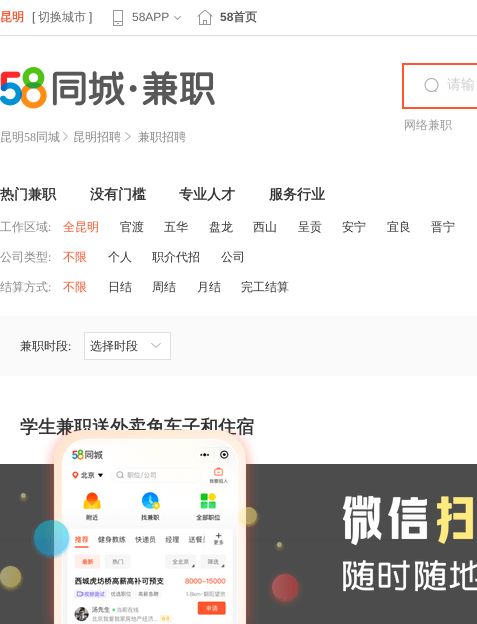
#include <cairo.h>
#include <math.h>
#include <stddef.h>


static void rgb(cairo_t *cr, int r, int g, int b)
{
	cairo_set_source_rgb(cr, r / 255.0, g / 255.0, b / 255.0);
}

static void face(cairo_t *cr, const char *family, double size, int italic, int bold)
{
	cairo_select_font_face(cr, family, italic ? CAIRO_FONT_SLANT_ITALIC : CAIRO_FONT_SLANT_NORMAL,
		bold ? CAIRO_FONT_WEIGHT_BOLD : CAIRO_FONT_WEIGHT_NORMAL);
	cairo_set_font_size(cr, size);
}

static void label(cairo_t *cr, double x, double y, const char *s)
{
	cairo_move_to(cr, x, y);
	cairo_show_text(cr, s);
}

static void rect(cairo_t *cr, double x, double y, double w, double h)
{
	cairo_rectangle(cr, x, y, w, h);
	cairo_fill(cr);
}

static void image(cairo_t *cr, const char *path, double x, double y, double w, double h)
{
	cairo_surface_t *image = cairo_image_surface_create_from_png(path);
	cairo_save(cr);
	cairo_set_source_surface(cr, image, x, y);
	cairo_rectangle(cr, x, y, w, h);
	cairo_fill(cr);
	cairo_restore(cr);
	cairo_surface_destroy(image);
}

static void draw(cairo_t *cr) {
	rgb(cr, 255, 255, 255);
	cairo_paint(cr);
	rgb(cr, 221, 221, 221);
	rect(cr, 0, 35, 477, 1);
	face(cr, "WenQuanYi Zen Hei", 12, 0, 1);
	rgb(cr, 255, 85, 46);
	label(cr, 0, 21, "昆明");
	face(cr, "Liberation Sans", 12, 0, 0);
	rgb(cr, 85, 85, 85);
	label(cr, 32, 21, "[");
	face(cr, "WenQuanYi Zen Hei Medium", 12, 0, 0);
	rgb(cr, 102, 102, 102);
	label(cr, 38, 21, "切换城市");
	face(cr, "Liberation Sans", 12, 0, 0);
	rgb(cr, 85, 85, 85);
	label(cr, 89, 21, "]");
	image(cr, "image0.png", 113, 10, 10, 16);
	rgb(cr, 102, 102, 102);
	label(cr, 132, 21, "58APP");
	image(cr, "image1.png", 174, 16, 7, 4);
	image(cr, "image2.png", 197, 10, 16, 15);
	face(cr, "Liberation Sans", 12, 0, 1);
	rgb(cr, 85, 85, 85);
	label(cr, 220, 21, "58");
	face(cr, "WenQuanYi Zen Hei", 12, 0, 1);
	label(cr, 233, 21, "首页");
	image(cr, "image3.png", 0, 67, 215, 42);
	cairo_rectangle(cr, 403, 64, 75, 44);
	rgb(cr, 255, 85, 46);
	cairo_stroke(cr);
	image(cr, "image4.png", 424, 78, 15, 14);
	face(cr, "WenQuanYi Zen Hei Medium", 14, 0, 0);
	rgb(cr, 204, 204, 204);
	label(cr, 447, 89, "请输");
	face(cr, "WenQuanYi Zen Hei Medium", 12, 0, 0);
	rgb(cr, 153, 153, 153);
	label(cr, 404, 129, "网络兼职");
	rgb(cr, 136, 136, 136);
	label(cr, 0, 141, "昆明");
	face(cr, "Liberation Serif", 12, 0, 0);
	label(cr, 24, 141, "58");
	face(cr, "WenQuanYi Zen Hei Medium", 12, 0, 0);
	label(cr, 36, 141, "同城");
	image(cr, "image5.png", 63, 132, 5, 9);
	label(cr, 73, 141, "昆明招聘");
	image(cr, "image6.png", 125, 132, 6, 9);
	label(cr, 138, 141, "兼职招聘");
	face(cr, "WenQuanYi Zen Hei", 14, 0, 1);
	rgb(cr, 51, 51, 51);
	label(cr, 0, 199, "热门兼职");
	label(cr, 90, 199, "没有门槛");
	label(cr, 179, 199, "专业人才");
	label(cr, 269, 199, "服务行业");
	face(cr, "WenQuanYi Zen Hei Medium", 12, 0, 0);
	rgb(cr, 136, 136, 136);
	label(cr, 0, 231, "工作区域");
	face(cr, "Liberation Serif", 12, 0, 0);
	label(cr, 48, 231, ":");
	face(cr, "WenQuanYi Zen Hei Medium", 12, 0, 0);
	rgb(cr, 255, 85, 46);
	label(cr, 63, 231, "全昆明");
	rgb(cr, 51, 51, 51);
	label(cr, 120, 231, "官渡");
	label(cr, 164, 231, "五华");
	label(cr, 209, 231, "盘龙");
	label(cr, 253, 231, "西山");
	label(cr, 298, 231, "呈贡");
	label(cr, 342, 231, "安宁");
	label(cr, 387, 231, "宜良");
	label(cr, 431, 231, "晋宁");
	rgb(cr, 136, 136, 136);
	label(cr, 0, 261, "公司类型");
	face(cr, "Liberation Serif", 12, 0, 0);
	label(cr, 48, 261, ":");
	face(cr, "WenQuanYi Zen Hei Medium", 12, 0, 0);
	rgb(cr, 255, 85, 46);
	label(cr, 63, 261, "不限");
	rgb(cr, 51, 51, 51);
	label(cr, 108, 261, "个人");
	label(cr, 152, 261, "职介代招");
	label(cr, 221, 261, "公司");
	rgb(cr, 136, 136, 136);
	label(cr, 0, 291, "结算方式");
	face(cr, "Liberation Serif", 12, 0, 0);
	label(cr, 48, 291, ":");
	face(cr, "WenQuanYi Zen Hei Medium", 12, 0, 0);
	rgb(cr, 255, 85, 46);
	label(cr, 63, 291, "不限");
	rgb(cr, 51, 51, 51);
	label(cr, 108, 291, "日结");
	label(cr, 152, 291, "周结");
	label(cr, 197, 291, "月结");
	label(cr, 241, 291, "完工结算");
	rgb(cr, 250, 250, 250);
	rect(cr, 0, 316, 477, 60);
	rgb(cr, 51, 51, 51);
	label(cr, 20, 350, "兼职时段");
	face(cr, "Liberation Serif", 12, 0, 0);
	label(cr, 68, 350, ":");
	rgb(cr, 255, 255, 255);
	cairo_rectangle(cr, 84.5, 332.5, 86, 27);
	cairo_fill_preserve(cr);
	rgb(cr, 224, 224, 224);
	cairo_set_line_width(cr, 1);
	cairo_stroke(cr);
	face(cr, "WenQuanYi Zen Hei Medium", 12, 0, 0);
	rgb(cr, 51, 51, 51);
	label(cr, 90, 350, "选择时段");
	image(cr, "image7.png", 151, 343, 10, 5);
	rgb(cr, 244, 244, 244);
	rect(cr, 0, 540, 477, 1);
	face(cr, "WenQuanYi Zen Hei", 18, 0, 1);
	rgb(cr, 51, 51, 51);
	label(cr, 20, 433, "学生兼职送外卖免车子和住宿");
	cairo_set_source_rgba(cr, 0, 0, 0, 0.7);
	rect(cr, 0, 464, 477, 160);
	image(cr, "image8.png", 0, 430, 477, 194);
}

int main(void) {
	cairo_surface_t *surface = cairo_image_surface_create(CAIRO_FORMAT_RGB24, 477, 624);
	cairo_t *cr = cairo_create(surface);
	cairo_font_options_t *options = cairo_font_options_create();
	cairo_font_options_set_hint_metrics(options, CAIRO_HINT_METRICS_OFF);
	cairo_font_options_set_hint_style(options, CAIRO_HINT_STYLE_NONE);
	cairo_set_font_options(cr, options);
	cairo_set_miter_limit(cr, 4);
	draw(cr);
	cairo_surface_write_to_png(surface, "render.png");
	cairo_font_options_destroy(options);
	cairo_destroy(cr);
	cairo_surface_destroy(surface);
	return 0;
}
